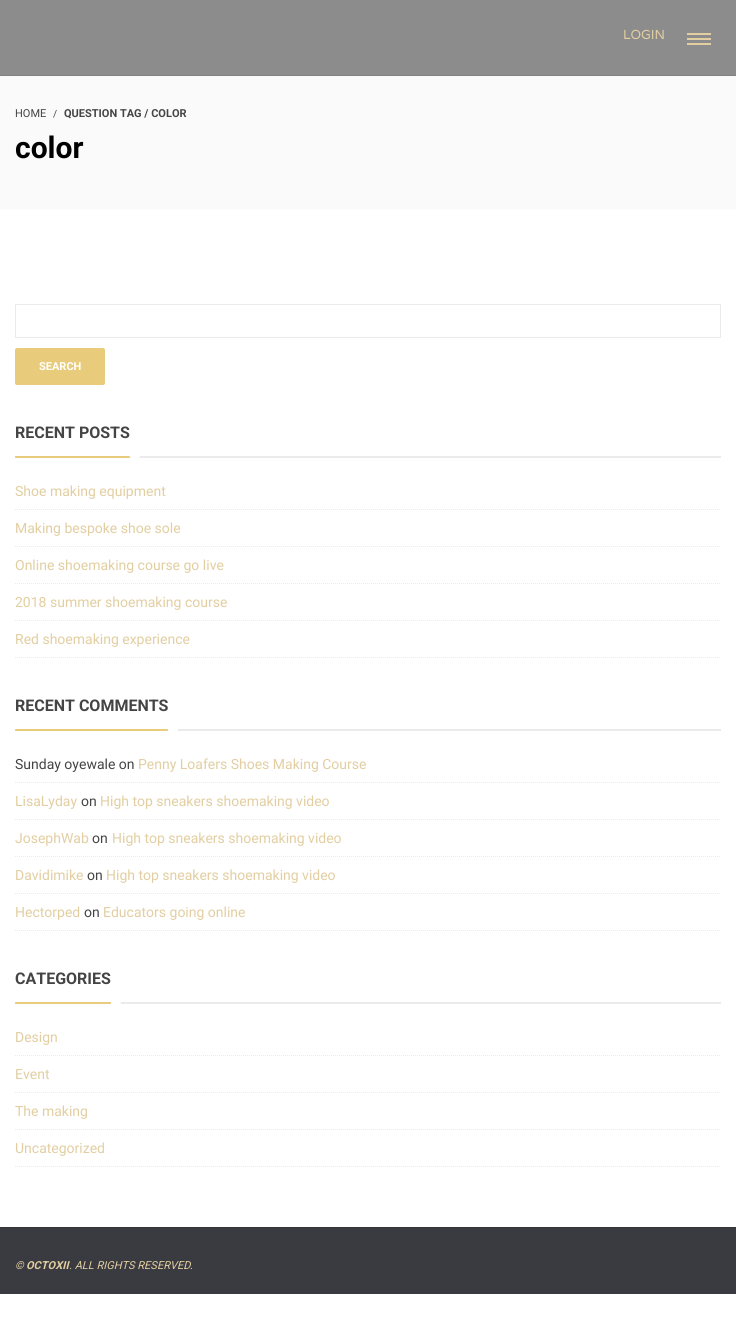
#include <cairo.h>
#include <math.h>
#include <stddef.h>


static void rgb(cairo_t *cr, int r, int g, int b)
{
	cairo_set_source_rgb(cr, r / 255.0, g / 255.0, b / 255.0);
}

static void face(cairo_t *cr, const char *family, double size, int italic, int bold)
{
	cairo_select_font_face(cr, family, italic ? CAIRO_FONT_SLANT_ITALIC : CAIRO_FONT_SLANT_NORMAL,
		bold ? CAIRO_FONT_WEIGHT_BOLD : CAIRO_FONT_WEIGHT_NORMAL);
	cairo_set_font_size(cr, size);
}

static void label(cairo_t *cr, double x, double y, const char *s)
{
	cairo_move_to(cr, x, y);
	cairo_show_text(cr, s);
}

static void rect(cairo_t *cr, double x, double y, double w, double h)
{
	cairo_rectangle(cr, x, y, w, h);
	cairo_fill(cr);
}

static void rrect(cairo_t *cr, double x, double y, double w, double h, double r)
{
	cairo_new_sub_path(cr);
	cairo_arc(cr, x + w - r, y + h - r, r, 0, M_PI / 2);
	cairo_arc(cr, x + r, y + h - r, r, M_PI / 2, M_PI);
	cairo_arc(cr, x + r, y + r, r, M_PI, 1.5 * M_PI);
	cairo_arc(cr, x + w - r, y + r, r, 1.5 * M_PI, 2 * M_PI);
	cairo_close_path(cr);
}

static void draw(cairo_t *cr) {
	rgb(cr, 255, 255, 255);
	cairo_paint(cr);
	rgb(cr, 140, 140, 140);
	rect(cr, 0, 0, 736, 75);
	rgb(cr, 129, 129, 129);
	rect(cr, 0, 75, 736, 1);
	face(cr, "Varela", 13, 0, 0);
	rgb(cr, 226, 206, 161);
	label(cr, 623, 39, "LOGIN");
	rect(cr, 687, 38, 24, 2);
	rect(cr, 687, 33, 24, 2);
	rect(cr, 687, 43, 24, 2);
	rgb(cr, 250, 250, 250);
	rect(cr, 0, 76, 736, 133);
	face(cr, "Roboto", 11, 0, 0);
	rgb(cr, 68, 68, 68);
	label(cr, 15, 117, "HOME");
	face(cr, "Roboto", 10, 0, 0);
	label(cr, 53, 117, "/");
	face(cr, "Roboto", 11, 0, 1);
	label(cr, 64, 117, "QUESTION TAG / COLOR");
	face(cr, "Roboto", 30, 0, 1);
	rgb(cr, 0, 0, 0);
	label(cr, 15, 158, "color");
	cairo_rectangle(cr, 15.5, 304.5, 705, 33);
	rgb(cr, 235, 235, 235);
	cairo_set_line_width(cr, 1);
	cairo_stroke(cr);
	rgb(cr, 232, 204, 123);
	rrect(cr, 15, 348, 90, 37, 2);
	cairo_fill(cr);
	face(cr, "Roboto", 11, 0, 1);
	rgb(cr, 255, 255, 255);
	label(cr, 39, 370, "SEARCH");
	rgb(cr, 235, 235, 235);
	rect(cr, 15, 456, 706, 2);
	face(cr, "Roboto", 16, 0, 1);
	rgb(cr, 68, 68, 68);
	label(cr, 15, 438, "RECENT POSTS");
	rgb(cr, 232, 204, 123);
	rrect(cr, 15, 456, 115, 2, 1);
	cairo_fill(cr);
	rgb(cr, 255, 255, 255);
	rrect(cr, 130, 456, 10, 2, 1);
	cairo_fill(cr);
	cairo_new_path(cr);
	cairo_move_to(cr, 15, 509.5);
	cairo_line_to(cr, 721, 509.5);
	rgb(cr, 235, 235, 235);
	cairo_set_dash(cr, (double[]){1, 1}, 2, 0);
	cairo_stroke(cr);
	face(cr, "Roboto", 14, 0, 0);
	rgb(cr, 226, 206, 161);
	label(cr, 15, 496, "Shoe making equipment");
	cairo_new_path(cr);
	cairo_move_to(cr, 15, 546.5);
	cairo_line_to(cr, 721, 546.5);
	rgb(cr, 235, 235, 235);
	cairo_stroke(cr);
	rgb(cr, 226, 206, 161);
	label(cr, 15, 533, "Making bespoke shoe sole");
	cairo_new_path(cr);
	cairo_move_to(cr, 15, 583.5);
	cairo_line_to(cr, 721, 583.5);
	rgb(cr, 235, 235, 235);
	cairo_stroke(cr);
	rgb(cr, 226, 206, 161);
	label(cr, 15, 570, "Online shoemaking course go live");
	cairo_new_path(cr);
	cairo_move_to(cr, 15, 620.5);
	cairo_line_to(cr, 721, 620.5);
	rgb(cr, 235, 235, 235);
	cairo_stroke(cr);
	rgb(cr, 226, 206, 161);
	label(cr, 15, 607, "2018 summer shoemaking course");
	cairo_new_path(cr);
	cairo_move_to(cr, 15, 657.5);
	cairo_line_to(cr, 721, 657.5);
	rgb(cr, 235, 235, 235);
	cairo_stroke(cr);
	rgb(cr, 226, 206, 161);
	label(cr, 15, 644, "Red shoemaking experience");
	rgb(cr, 235, 235, 235);
	rect(cr, 15, 729, 706, 2);
	face(cr, "Roboto", 16, 0, 1);
	rgb(cr, 68, 68, 68);
	label(cr, 15, 711, "RECENT COMMENTS");
	rgb(cr, 232, 204, 123);
	rrect(cr, 15, 729, 153, 2, 1);
	cairo_fill(cr);
	rgb(cr, 255, 255, 255);
	rrect(cr, 168, 729, 10, 2, 1);
	cairo_fill(cr);
	cairo_new_path(cr);
	cairo_move_to(cr, 15, 782.5);
	cairo_line_to(cr, 721, 782.5);
	rgb(cr, 235, 235, 235);
	cairo_stroke(cr);
	face(cr, "Roboto", 14, 0, 0);
	rgb(cr, 68, 68, 68);
	label(cr, 15, 769, "Sunday oyewale on");
	rgb(cr, 226, 206, 161);
	label(cr, 138, 769, "Penny Loafers Shoes Making Course");
	cairo_new_path(cr);
	cairo_move_to(cr, 15, 819.5);
	cairo_line_to(cr, 721, 819.5);
	rgb(cr, 235, 235, 235);
	cairo_stroke(cr);
	rgb(cr, 226, 206, 161);
	label(cr, 15, 806, "LisaLyday");
	rgb(cr, 68, 68, 68);
	label(cr, 81, 806, "on");
	rgb(cr, 226, 206, 161);
	label(cr, 100, 806, "High top sneakers shoemaking video");
	cairo_new_path(cr);
	cairo_move_to(cr, 15, 856.5);
	cairo_line_to(cr, 721, 856.5);
	rgb(cr, 235, 235, 235);
	cairo_stroke(cr);
	rgb(cr, 226, 206, 161);
	label(cr, 15, 843, "JosephWab");
	rgb(cr, 68, 68, 68);
	label(cr, 92, 843, "on");
	rgb(cr, 226, 206, 161);
	label(cr, 112, 843, "High top sneakers shoemaking video");
	cairo_new_path(cr);
	cairo_move_to(cr, 15, 893.5);
	cairo_line_to(cr, 721, 893.5);
	rgb(cr, 235, 235, 235);
	cairo_stroke(cr);
	rgb(cr, 226, 206, 161);
	label(cr, 15, 880, "Davidimike");
	rgb(cr, 68, 68, 68);
	label(cr, 87, 880, "on");
	rgb(cr, 226, 206, 161);
	label(cr, 106, 880, "High top sneakers shoemaking video");
	cairo_new_path(cr);
	cairo_move_to(cr, 15, 930.5);
	cairo_line_to(cr, 721, 930.5);
	rgb(cr, 235, 235, 235);
	cairo_stroke(cr);
	rgb(cr, 226, 206, 161);
	label(cr, 15, 917, "Hectorped");
	rgb(cr, 68, 68, 68);
	label(cr, 84, 917, "on");
	rgb(cr, 226, 206, 161);
	label(cr, 103, 917, "Educators going online");
	rgb(cr, 235, 235, 235);
	rect(cr, 15, 1002, 706, 2);
	face(cr, "Roboto", 16, 0, 1);
	rgb(cr, 68, 68, 68);
	label(cr, 15, 984, "CATEGORIES");
	rgb(cr, 232, 204, 123);
	rrect(cr, 15, 1002, 96, 2, 1);
	cairo_fill(cr);
	rgb(cr, 255, 255, 255);
	rrect(cr, 111, 1002, 10, 2, 1);
	cairo_fill(cr);
	cairo_new_path(cr);
	cairo_move_to(cr, 15, 1055.5);
	cairo_line_to(cr, 721, 1055.5);
	rgb(cr, 235, 235, 235);
	cairo_stroke(cr);
	face(cr, "Roboto", 14, 0, 0);
	rgb(cr, 226, 206, 161);
	label(cr, 15, 1042, "Design");
	cairo_new_path(cr);
	cairo_move_to(cr, 15, 1092.5);
	cairo_line_to(cr, 721, 1092.5);
	rgb(cr, 235, 235, 235);
	cairo_stroke(cr);
	rgb(cr, 226, 206, 161);
	label(cr, 15, 1079, "Event");
	cairo_new_path(cr);
	cairo_move_to(cr, 15, 1129.5);
	cairo_line_to(cr, 721, 1129.5);
	rgb(cr, 235, 235, 235);
	cairo_stroke(cr);
	rgb(cr, 226, 206, 161);
	label(cr, 15, 1116, "The making");
	cairo_new_path(cr);
	cairo_move_to(cr, 15, 1166.5);
	cairo_line_to(cr, 721, 1166.5);
	rgb(cr, 235, 235, 235);
	cairo_stroke(cr);
	rgb(cr, 226, 206, 161);
	label(cr, 15, 1153, "Uncategorized");
	rgb(cr, 58, 58, 65);
	rect(cr, 0, 1228, 736, 66);
	rgb(cr, 53, 53, 60);
	rect(cr, 0, 1227, 736, 1);
	face(cr, "Roboto", 11, 1, 0);
	rgb(cr, 226, 206, 161);
	label(cr, 15, 1269, "©");
	face(cr, "Roboto", 11, 1, 1);
	label(cr, 26, 1269, "OCTOXII");
	face(cr, "Roboto", 11, 1, 0);
	label(cr, 69, 1269, ". ALL RIGHTS RESERVED");
	face(cr, "Roboto", 11, 0, 0);
	label(cr, 190, 1269, ".");
}

int main(void) {
	cairo_surface_t *surface = cairo_image_surface_create(CAIRO_FORMAT_RGB24, 736, 1322);
	cairo_t *cr = cairo_create(surface);
	cairo_font_options_t *options = cairo_font_options_create();
	cairo_font_options_set_hint_metrics(options, CAIRO_HINT_METRICS_OFF);
	cairo_font_options_set_hint_style(options, CAIRO_HINT_STYLE_NONE);
	cairo_set_font_options(cr, options);
	cairo_set_miter_limit(cr, 4);
	draw(cr);
	cairo_surface_write_to_png(surface, "render.png");
	cairo_font_options_destroy(options);
	cairo_destroy(cr);
	cairo_surface_destroy(surface);
	return 0;
}
